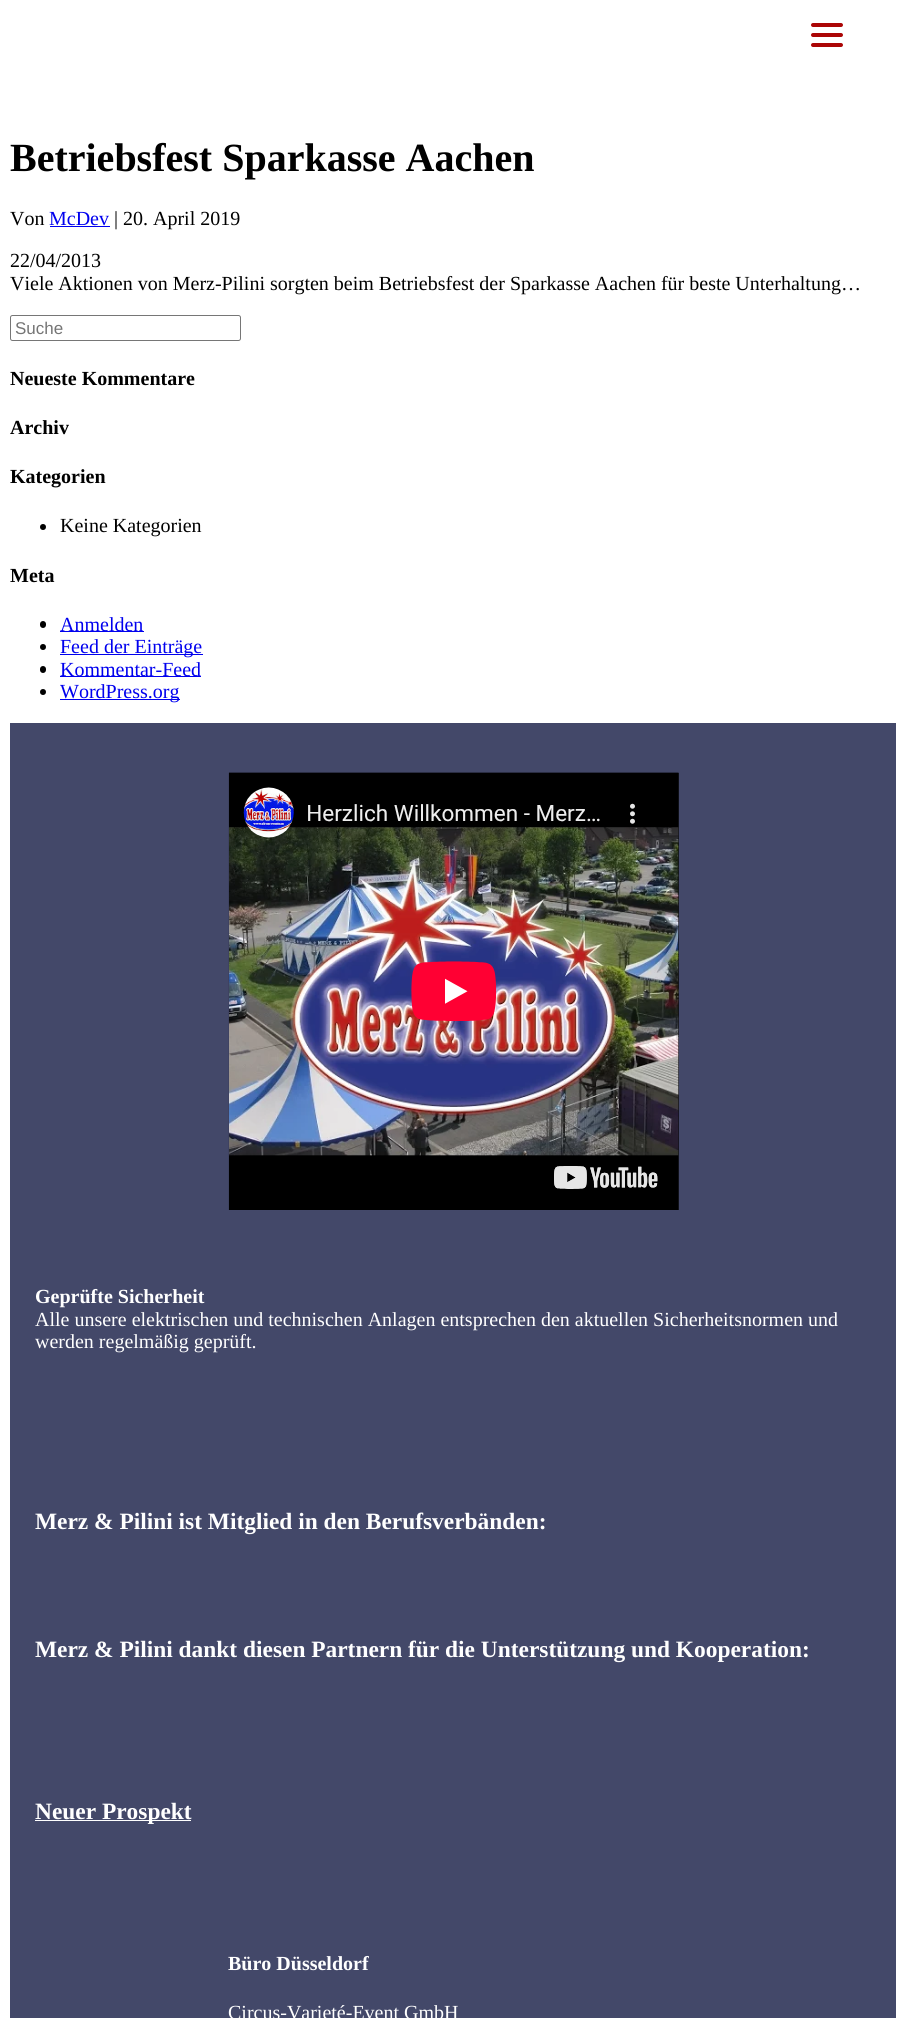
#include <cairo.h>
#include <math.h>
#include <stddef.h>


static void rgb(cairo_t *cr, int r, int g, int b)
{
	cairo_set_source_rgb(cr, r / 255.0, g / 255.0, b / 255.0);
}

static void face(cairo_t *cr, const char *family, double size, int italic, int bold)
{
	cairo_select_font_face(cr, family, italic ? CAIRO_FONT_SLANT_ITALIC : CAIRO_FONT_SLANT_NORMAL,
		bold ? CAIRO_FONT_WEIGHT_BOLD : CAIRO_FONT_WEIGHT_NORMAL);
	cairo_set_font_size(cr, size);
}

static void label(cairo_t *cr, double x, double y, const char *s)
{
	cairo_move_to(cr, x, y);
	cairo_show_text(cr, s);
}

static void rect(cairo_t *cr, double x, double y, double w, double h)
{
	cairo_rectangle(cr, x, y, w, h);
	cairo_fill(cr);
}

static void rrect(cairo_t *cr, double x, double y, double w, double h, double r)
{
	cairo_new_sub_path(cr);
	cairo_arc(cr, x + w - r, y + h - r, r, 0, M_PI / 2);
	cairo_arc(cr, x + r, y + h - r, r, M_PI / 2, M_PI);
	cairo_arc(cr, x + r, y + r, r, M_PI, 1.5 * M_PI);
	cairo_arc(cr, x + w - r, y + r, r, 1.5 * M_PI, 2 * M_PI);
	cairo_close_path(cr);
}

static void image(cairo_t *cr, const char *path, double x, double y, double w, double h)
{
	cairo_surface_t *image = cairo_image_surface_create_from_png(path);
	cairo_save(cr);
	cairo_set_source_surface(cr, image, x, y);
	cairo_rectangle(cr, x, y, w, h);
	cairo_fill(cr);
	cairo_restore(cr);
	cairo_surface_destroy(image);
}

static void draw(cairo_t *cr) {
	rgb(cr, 255, 255, 255);
	cairo_paint(cr);
	rgb(cr, 171, 6, 6);
	rrect(cr, 811, 33, 32, 4, 2);
	cairo_fill(cr);
	rrect(cr, 811, 23, 32, 4, 2);
	cairo_fill(cr);
	rrect(cr, 811, 43, 32, 4, 2);
	cairo_fill(cr);
	face(cr, "Liberation Serif", 40, 0, 1);
	rgb(cr, 0, 0, 0);
	label(cr, 10, 171, "Betriebsfest Sparkasse Aachen");
	face(cr, "Liberation Serif", 20, 0, 0);
	label(cr, 10, 225, "Von");
	rgb(cr, 0, 0, 238);
	label(cr, 49, 225, "McDev");
	rect(cr, 50, 226, 60, 1);
	rgb(cr, 0, 0, 0);
	label(cr, 114, 225, "| 20. April 2019");
	label(cr, 10, 267, "22/04/2013");
	label(cr, 10, 290, "Viele Aktionen von Merz-Pilini sorgten beim Betriebsfest der Sparkasse Aachen für beste Unterhaltung…");
	rrect(cr, 10.5, 315.5, 230, 25, 2);
	rgb(cr, 118, 118, 118);
	cairo_set_line_width(cr, 1);
	cairo_stroke(cr);
	face(cr, "Liberation Sans", 17, 0, 0);
	rgb(cr, 117, 117, 117);
	label(cr, 15, 334, "Suche");
	face(cr, "Liberation Serif", 20, 0, 1);
	rgb(cr, 0, 0, 0);
	label(cr, 10, 385, "Neueste Kommentare");
	label(cr, 10, 434, "Archiv");
	label(cr, 10, 483, "Kategorien");
	cairo_new_path(cr);
	cairo_arc(cr, 43, 527, 3, 0, 2 * M_PI);
	cairo_fill(cr);
	face(cr, "Liberation Serif", 20, 0, 0);
	label(cr, 60, 532, "Keine Kategorien");
	face(cr, "Liberation Serif", 20, 0, 1);
	label(cr, 10, 582, "Meta");
	rrect(cr, 40, 621, 6, 7, 3);
	cairo_fill(cr);
	rgb(cr, 0, 0, 238);
	rect(cr, 60, 631, 84, 1);
	face(cr, "Liberation Serif", 20, 0, 0);
	label(cr, 60, 631, "Anmelden");
	rgb(cr, 0, 0, 0);
	cairo_new_path(cr);
	cairo_arc(cr, 43, 647, 3, 0, 2 * M_PI);
	cairo_fill(cr);
	rgb(cr, 0, 0, 238);
	rect(cr, 60, 654, 143, 1);
	label(cr, 60, 653, "Feed der Einträge");
	rgb(cr, 0, 0, 0);
	rrect(cr, 40, 666, 6, 7, 3);
	cairo_fill(cr);
	rgb(cr, 0, 0, 238);
	rect(cr, 60, 676, 141, 1);
	label(cr, 60, 676, "Kommentar-Feed");
	rgb(cr, 0, 0, 0);
	cairo_new_path(cr);
	cairo_arc(cr, 43, 692, 3, 0, 2 * M_PI);
	cairo_fill(cr);
	rgb(cr, 0, 0, 238);
	rect(cr, 60, 699, 120, 1);
	label(cr, 60, 698, "WordPress.org");
	rgb(cr, 67, 72, 105);
	rect(cr, 10, 723, 886, 1295);
	image(cr, "image0.png", 228, 772, 451, 438);
	face(cr, "Liberation Serif", 20, 0, 1);
	rgb(cr, 255, 255, 255);
	label(cr, 35, 1303, "Geprüfte Sicherheit");
	face(cr, "Liberation Serif", 20, 0, 0);
	label(cr, 35, 1326, "Alle unsere elektrischen und technischen Anlagen entsprechen den aktuellen Sicherheitsnormen und");
	label(cr, 35, 1348, "werden regelmäßig geprüft.");
	face(cr, "Liberation Serif", 23.4, 0, 1);
	label(cr, 35, 1529, "Merz & Pilini ist Mitglied in den Berufsverbänden:");
	label(cr, 35, 1657, "Merz & Pilini dankt diesen Partnern");
	label(cr, 408, 1657, "für die Unterstützung und Kooperation:");
	rect(cr, 35, 1820, 156, 1);
	label(cr, 35, 1819, "Neuer Prospekt");
	face(cr, "Liberation Serif", 20, 0, 1);
	label(cr, 228, 1970, "Büro Düsseldorf");
	face(cr, "Liberation Serif", 20, 0, 0);
	label(cr, 228, 2019, "Circus-Varieté-Event GmbH");
}

int main(void) {
	cairo_surface_t *surface = cairo_image_surface_create(CAIRO_FORMAT_RGB24, 906, 2018);
	cairo_t *cr = cairo_create(surface);
	cairo_font_options_t *options = cairo_font_options_create();
	cairo_font_options_set_hint_metrics(options, CAIRO_HINT_METRICS_OFF);
	cairo_font_options_set_hint_style(options, CAIRO_HINT_STYLE_NONE);
	cairo_set_font_options(cr, options);
	cairo_set_miter_limit(cr, 4);
	draw(cr);
	cairo_surface_write_to_png(surface, "render.png");
	cairo_font_options_destroy(options);
	cairo_destroy(cr);
	cairo_surface_destroy(surface);
	return 0;
}
